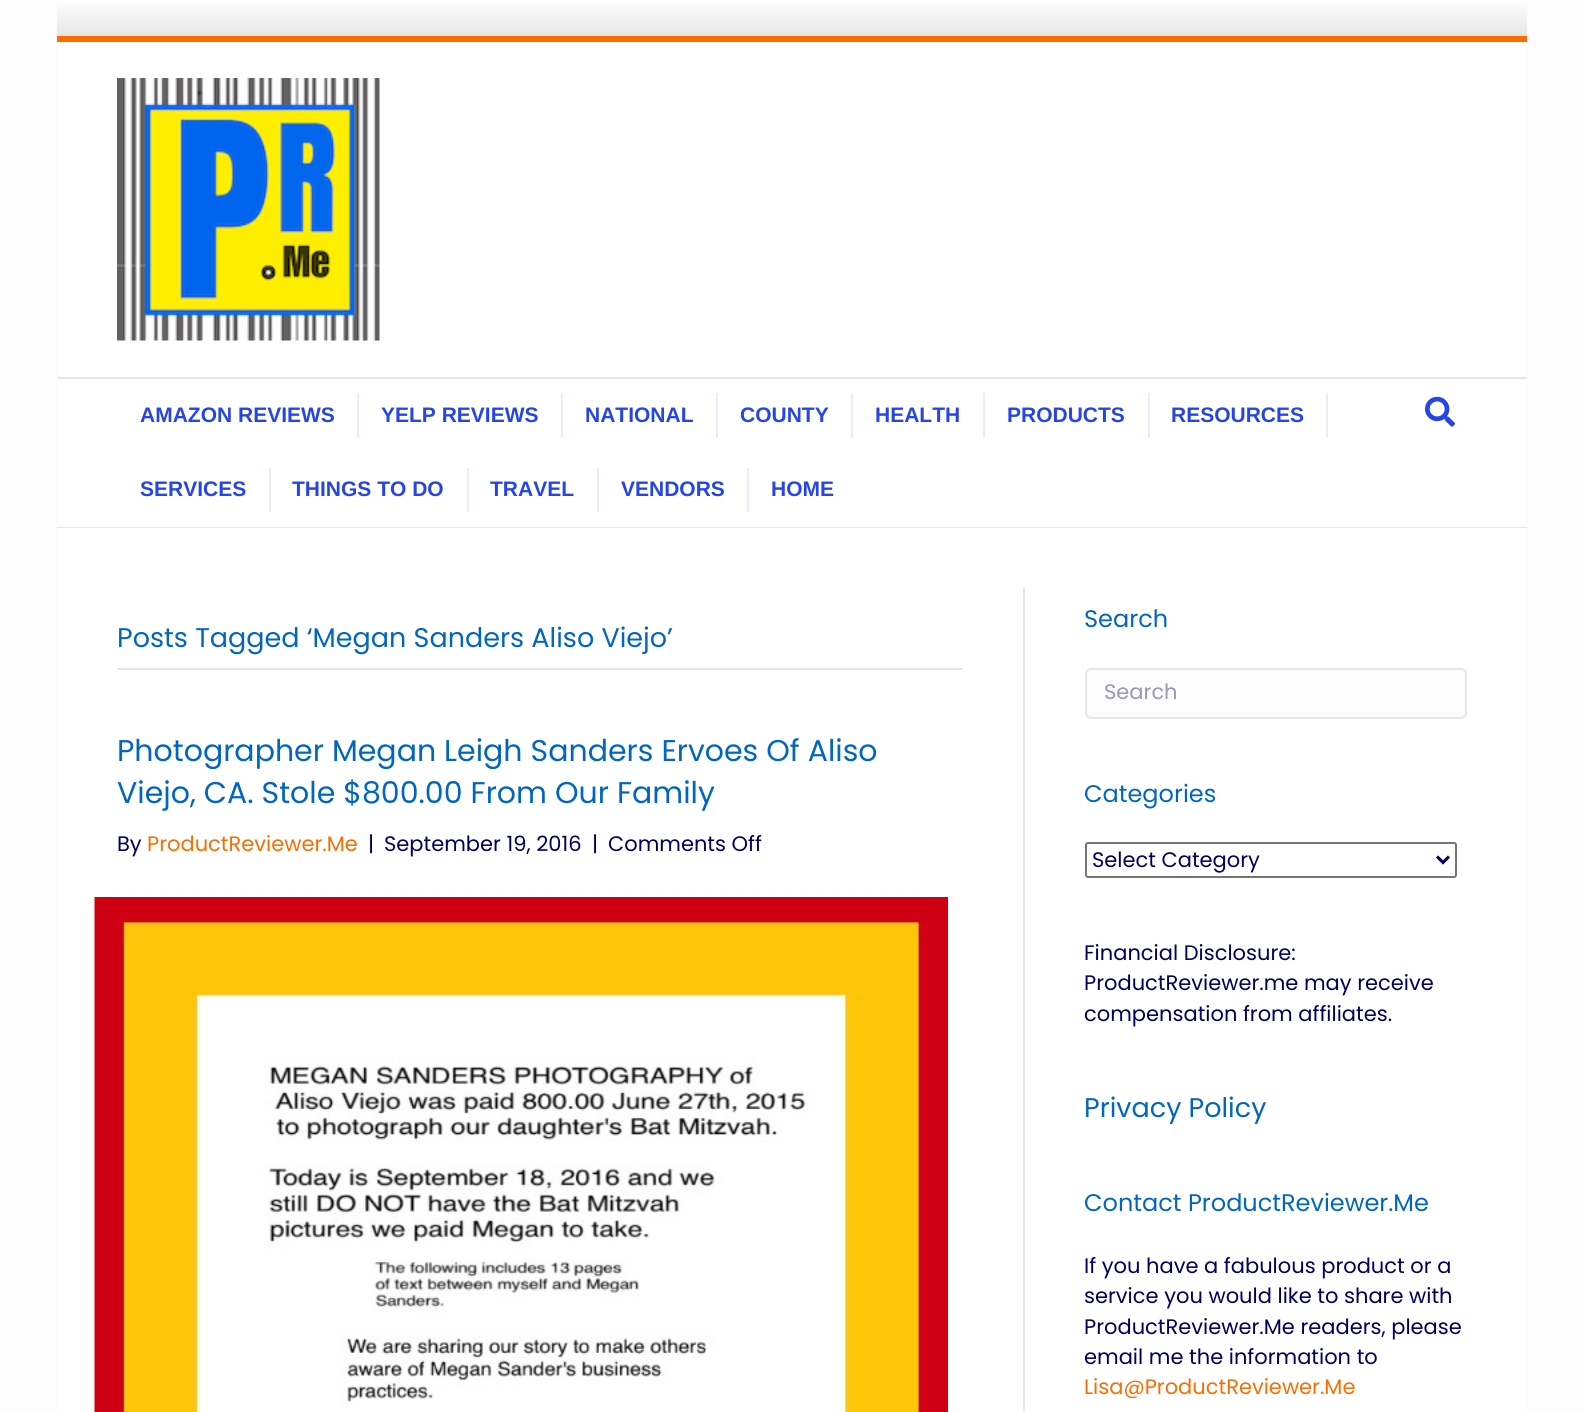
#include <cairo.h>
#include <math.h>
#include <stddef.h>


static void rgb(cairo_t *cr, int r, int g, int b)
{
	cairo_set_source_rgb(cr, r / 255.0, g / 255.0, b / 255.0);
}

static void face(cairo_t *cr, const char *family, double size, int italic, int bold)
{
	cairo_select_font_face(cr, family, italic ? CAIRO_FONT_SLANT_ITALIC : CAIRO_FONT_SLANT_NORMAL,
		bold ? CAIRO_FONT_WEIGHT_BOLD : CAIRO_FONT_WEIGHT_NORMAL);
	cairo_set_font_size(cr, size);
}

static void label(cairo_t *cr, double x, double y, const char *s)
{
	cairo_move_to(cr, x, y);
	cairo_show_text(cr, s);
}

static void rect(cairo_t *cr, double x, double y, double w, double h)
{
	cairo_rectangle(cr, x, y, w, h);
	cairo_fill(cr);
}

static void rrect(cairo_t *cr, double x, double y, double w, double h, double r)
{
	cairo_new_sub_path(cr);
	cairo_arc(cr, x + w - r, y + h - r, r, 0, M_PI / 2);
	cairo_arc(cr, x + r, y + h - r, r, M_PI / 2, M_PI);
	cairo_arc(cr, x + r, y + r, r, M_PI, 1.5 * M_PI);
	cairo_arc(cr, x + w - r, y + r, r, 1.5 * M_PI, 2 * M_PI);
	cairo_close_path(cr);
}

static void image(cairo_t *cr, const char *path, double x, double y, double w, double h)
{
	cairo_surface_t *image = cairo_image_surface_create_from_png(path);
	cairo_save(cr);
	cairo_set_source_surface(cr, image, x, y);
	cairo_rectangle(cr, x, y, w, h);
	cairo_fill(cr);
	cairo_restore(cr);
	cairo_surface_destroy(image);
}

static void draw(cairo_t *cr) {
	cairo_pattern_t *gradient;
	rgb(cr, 252, 252, 252);
	cairo_paint(cr);
	gradient = cairo_pattern_create_linear(792, 0, 792, 36);
	cairo_pattern_add_color_stop_rgba(gradient, 0, 1, 1, 1, 1);
	cairo_pattern_add_color_stop_rgba(gradient, 1, 0.902, 0.902, 0.902, 1);
	cairo_set_source(cr, gradient);
	cairo_pattern_destroy(gradient);
	rect(cr, 57, 0, 1470, 36);
	rgb(cr, 252, 109, 0);
	rect(cr, 57, 36, 1470, 6);
	rgb(cr, 255, 255, 255);
	rect(cr, 57, 42, 1470, 485);
	image(cr, "image0.png", 117, 78, 263, 263);
	rgb(cr, 230, 230, 230);
	rect(cr, 57, 377, 1470, 2);
	rect(cr, 57, 527, 1470, 1);
	rgb(cr, 233, 236, 253);
	rect(cr, 357, 393, 2, 45);
	face(cr, "Liberation Sans", 21, 0, 1);
	rgb(cr, 37, 69, 232);
	label(cr, 140, 422, "AMAZON REVIEWS");
	rgb(cr, 233, 236, 253);
	rect(cr, 561, 393, 2, 45);
	rgb(cr, 37, 69, 232);
	label(cr, 381, 422, "YELP REVIEWS");
	rgb(cr, 233, 236, 253);
	rect(cr, 716, 393, 2, 45);
	rgb(cr, 37, 69, 232);
	label(cr, 585, 422, "NATIONAL");
	rgb(cr, 233, 236, 253);
	rect(cr, 851, 393, 2, 45);
	rgb(cr, 37, 69, 232);
	label(cr, 740, 422, "COUNTY");
	rgb(cr, 233, 236, 253);
	rect(cr, 983, 393, 2, 45);
	rgb(cr, 37, 69, 232);
	label(cr, 875, 422, "HEALTH");
	rgb(cr, 233, 236, 253);
	rect(cr, 1148, 393, 2, 45);
	rgb(cr, 37, 69, 232);
	label(cr, 1007, 422, "PRODUCTS");
	rgb(cr, 233, 236, 253);
	rect(cr, 1326, 393, 2, 45);
	rgb(cr, 37, 69, 232);
	label(cr, 1171, 422, "RESOURCES");
	rgb(cr, 233, 236, 253);
	rect(cr, 269, 468, 2, 44);
	rgb(cr, 37, 69, 232);
	label(cr, 140, 496, "SERVICES");
	rgb(cr, 233, 236, 253);
	rect(cr, 467, 468, 2, 44);
	rgb(cr, 37, 69, 232);
	label(cr, 292, 496, "THINGS TO DO");
	rgb(cr, 233, 236, 253);
	rect(cr, 597, 468, 2, 44);
	rgb(cr, 37, 69, 232);
	label(cr, 490, 496, "TRAVEL");
	rgb(cr, 233, 236, 253);
	rect(cr, 747, 468, 2, 44);
	rgb(cr, 37, 69, 232);
	label(cr, 621, 496, "VENDORS");
	label(cr, 771, 496, "HOME");
	image(cr, "image1.png", 1425, 396, 30, 31);
	rgb(cr, 255, 255, 255);
	rect(cr, 57, 528, 1470, 884);
	rgb(cr, 230, 230, 230);
	rect(cr, 1023, 588, 2, 824);
	rect(cr, 117, 668, 846, 2);
	face(cr, "Poppins", 27, 0, 0);
	rgb(cr, 0, 102, 191);
	label(cr, 117, 647, "Posts Tagged ‘Megan Sanders Aliso Viejo’");
	face(cr, "Poppins", 30, 0, 0);
	label(cr, 117, 761, "Photographer Megan Leigh Sanders Ervoes Of Aliso");
	label(cr, 117, 803, "Viejo, CA. Stole $800.00 From Our Family");
	face(cr, "Poppins", 21, 0, 0);
	rgb(cr, 0, 0, 96);
	label(cr, 117, 851, "By");
	rgb(cr, 252, 109, 0);
	label(cr, 147, 851, "ProductReviewer.Me");
	rgb(cr, 0, 0, 96);
	label(cr, 368, 851, "|");
	label(cr, 384, 851, "September 19, 2016");
	label(cr, 592, 851, "|");
	label(cr, 608, 851, "Comments Off");
	image(cr, "image2.png", 94, 897, 854, 515);
	face(cr, "Poppins", 24, 0, 0);
	rgb(cr, 0, 102, 191);
	label(cr, 1084, 627, "Search");
	rgb(cr, 252, 252, 252);
	rrect(cr, 1086, 669, 380, 49, 5);
	cairo_fill_preserve(cr);
	rgb(cr, 230, 230, 230);
	cairo_stroke(cr);
	face(cr, "Poppins", 21, 0, 0);
	rgb(cr, 151, 151, 190);
	label(cr, 1104, 699, "Search");
	face(cr, "Poppins", 24, 0, 0);
	rgb(cr, 0, 102, 191);
	label(cr, 1084, 802, "Categories");
	rrect(cr, 1086, 843, 370, 34, 2);
	rgb(cr, 118, 118, 118);
	cairo_stroke(cr);
	cairo_new_path(cr);
	cairo_move_to(cr, 1437, 856.5);
	cairo_line_to(cr, 1443, 862.5);
	cairo_line_to(cr, 1449, 856.5);
	rgb(cr, 0, 0, 96);
	cairo_set_line_width(cr, 3);
	cairo_stroke(cr);
	face(cr, "Poppins", 21, 0, 0);
	label(cr, 1092, 867, "Select Category");
	label(cr, 1084, 960, "Financial Disclosure:");
	label(cr, 1084, 990, "ProductReviewer.me may receive");
	label(cr, 1084, 1021, "compensation from affiliates.");
	face(cr, "Poppins", 27, 0, 0);
	rgb(cr, 0, 102, 191);
	label(cr, 1084, 1117, "Privacy Policy");
	face(cr, "Poppins", 24, 0, 0);
	label(cr, 1084, 1211, "Contact ProductReviewer.Me");
	face(cr, "Poppins", 21, 0, 0);
	rgb(cr, 0, 0, 96);
	label(cr, 1084, 1273, "If you have a fabulous product or a");
	label(cr, 1084, 1303, "service you would like to share with");
	label(cr, 1084, 1334, "ProductReviewer.Me readers, please");
	label(cr, 1084, 1364, "email me the information to");
	rgb(cr, 252, 109, 0);
	label(cr, 1084, 1394, "Lisa@ProductReviewer.Me");
}

int main(void) {
	cairo_surface_t *surface = cairo_image_surface_create(CAIRO_FORMAT_RGB24, 1583, 1412);
	cairo_t *cr = cairo_create(surface);
	cairo_font_options_t *options = cairo_font_options_create();
	cairo_font_options_set_hint_metrics(options, CAIRO_HINT_METRICS_OFF);
	cairo_font_options_set_hint_style(options, CAIRO_HINT_STYLE_NONE);
	cairo_set_font_options(cr, options);
	cairo_set_miter_limit(cr, 4);
	draw(cr);
	cairo_surface_write_to_png(surface, "render.png");
	cairo_font_options_destroy(options);
	cairo_destroy(cr);
	cairo_surface_destroy(surface);
	return 0;
}
